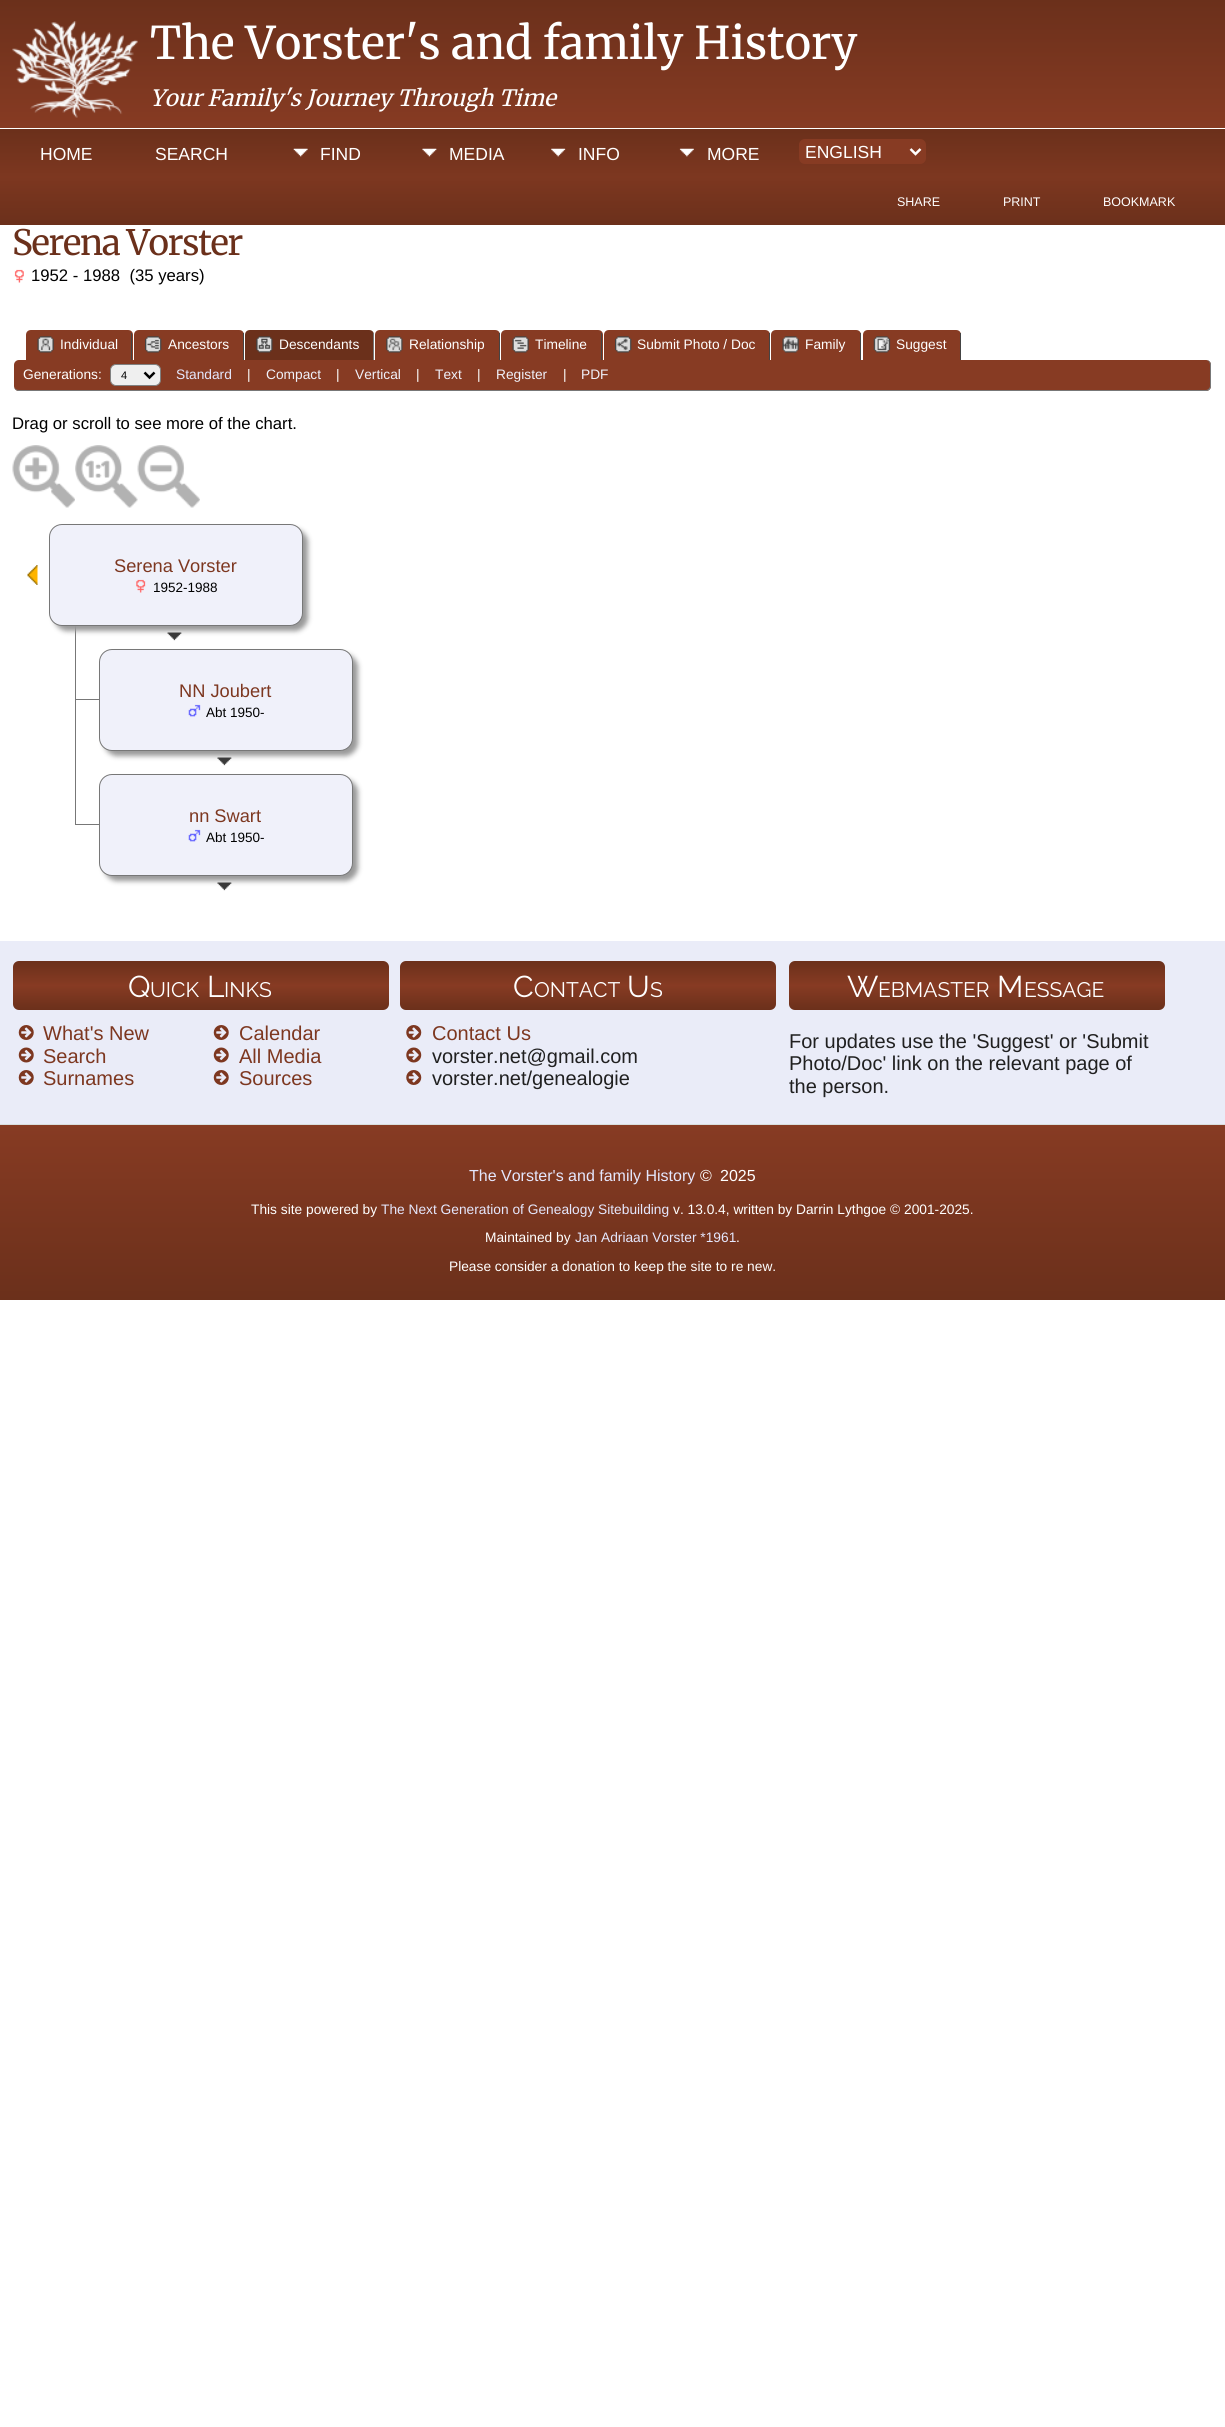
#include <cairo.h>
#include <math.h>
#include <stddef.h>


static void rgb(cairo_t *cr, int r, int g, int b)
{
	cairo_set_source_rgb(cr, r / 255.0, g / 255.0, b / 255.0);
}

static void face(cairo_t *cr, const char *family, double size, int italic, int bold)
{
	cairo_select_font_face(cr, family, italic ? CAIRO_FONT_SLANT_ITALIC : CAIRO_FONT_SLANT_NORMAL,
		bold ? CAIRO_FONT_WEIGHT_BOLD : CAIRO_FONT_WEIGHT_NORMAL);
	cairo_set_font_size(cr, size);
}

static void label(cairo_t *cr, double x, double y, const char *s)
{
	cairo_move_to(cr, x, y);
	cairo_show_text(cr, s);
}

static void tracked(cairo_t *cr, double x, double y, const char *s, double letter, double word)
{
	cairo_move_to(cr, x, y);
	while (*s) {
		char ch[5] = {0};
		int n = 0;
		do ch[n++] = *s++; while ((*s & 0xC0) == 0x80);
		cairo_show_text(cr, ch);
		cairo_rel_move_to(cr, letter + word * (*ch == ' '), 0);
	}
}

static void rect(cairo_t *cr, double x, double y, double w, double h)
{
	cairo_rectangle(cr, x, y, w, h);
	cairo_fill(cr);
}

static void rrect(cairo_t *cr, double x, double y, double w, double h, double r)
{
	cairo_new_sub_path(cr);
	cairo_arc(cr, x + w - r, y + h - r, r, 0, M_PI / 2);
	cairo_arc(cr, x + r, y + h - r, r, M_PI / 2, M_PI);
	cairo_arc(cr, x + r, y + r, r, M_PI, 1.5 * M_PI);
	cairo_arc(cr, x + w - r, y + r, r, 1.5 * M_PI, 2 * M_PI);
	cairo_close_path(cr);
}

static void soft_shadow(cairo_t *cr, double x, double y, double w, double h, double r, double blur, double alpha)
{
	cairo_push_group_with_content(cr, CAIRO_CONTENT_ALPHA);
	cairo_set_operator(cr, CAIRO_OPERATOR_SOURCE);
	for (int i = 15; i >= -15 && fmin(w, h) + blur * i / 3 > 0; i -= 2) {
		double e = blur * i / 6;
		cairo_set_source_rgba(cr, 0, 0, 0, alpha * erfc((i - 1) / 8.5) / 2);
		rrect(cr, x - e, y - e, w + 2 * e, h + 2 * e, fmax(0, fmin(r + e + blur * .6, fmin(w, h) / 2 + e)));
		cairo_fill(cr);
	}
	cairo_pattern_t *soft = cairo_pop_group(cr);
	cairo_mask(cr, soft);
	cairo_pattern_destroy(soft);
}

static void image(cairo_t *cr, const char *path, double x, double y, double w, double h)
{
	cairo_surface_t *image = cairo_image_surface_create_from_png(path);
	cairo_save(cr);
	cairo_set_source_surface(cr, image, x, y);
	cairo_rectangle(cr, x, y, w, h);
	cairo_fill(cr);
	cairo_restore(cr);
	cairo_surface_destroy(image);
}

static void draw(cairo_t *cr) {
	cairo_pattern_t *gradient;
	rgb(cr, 255, 255, 255);
	cairo_paint(cr);
	gradient = cairo_pattern_create_linear(613, 0, 613, 128);
	cairo_pattern_add_color_stop_rgba(gradient, 0, 0.42, 0.188, 0.106, 1);
	cairo_pattern_add_color_stop_rgba(gradient, 1, 0.529, 0.231, 0.137, 1);
	cairo_set_source(cr, gradient);
	cairo_pattern_destroy(gradient);
	rect(cr, 0, 0, 1225, 128);
	image(cr, "image0.png", 12, 21, 126, 97);
	face(cr, "Merriweather Light", 45, 0, 0);
	rgb(cr, 255, 255, 255);
	label(cr, 150, 59, "The Vorster's and family History");
	face(cr, "Merriweather Light", 22.5, 1, 0);
	label(cr, 150, 106, "Your Family's Journey Through Time");
	gradient = cairo_pattern_create_linear(613, 129, 613, 225);
	cairo_pattern_add_color_stop_rgba(gradient, 0, 0.42, 0.188, 0.106, 1);
	cairo_pattern_add_color_stop_rgba(gradient, 0.5, 0.49, 0.216, 0.125, 1);
	cairo_pattern_add_color_stop_rgba(gradient, 1, 0.42, 0.188, 0.106, 1);
	cairo_set_source(cr, gradient);
	cairo_pattern_destroy(gradient);
	rect(cr, 0, 129, 1225, 96);
	face(cr, "Liberation Sans", 17.5, 0, 0);
	rgb(cr, 255, 255, 255);
	label(cr, 40, 160, "HOME");
	label(cr, 155, 160, "SEARCH");
	image(cr, "image1.png", 293, 148, 15, 9);
	label(cr, 320, 160, "FIND");
	image(cr, "image2.png", 422, 148, 15, 9);
	label(cr, 449, 160, "MEDIA");
	image(cr, "image3.png", 551, 148, 15, 9);
	label(cr, 578, 160, "INFO");
	image(cr, "image4.png", 679, 148, 15, 9);
	label(cr, 707, 160, "MORE");
	rgb(cr, 135, 59, 35);
	rrect(cr, 799, 139, 127, 25, 6);
	cairo_fill(cr);
	cairo_new_path(cr);
	cairo_move_to(cr, 910.5, 149);
	cairo_line_to(cr, 915.5, 154);
	cairo_line_to(cr, 920.5, 149);
	rgb(cr, 255, 255, 255);
	cairo_set_line_width(cr, 2.5);
	cairo_stroke(cr);
	label(cr, 805, 158, "ENGLISH");
	face(cr, "Liberation Sans", 12.5, 0, 0);
	label(cr, 897, 206, "SHARE");
	label(cr, 1003, 206, "PRINT");
	label(cr, 1103, 206, "BOOKMARK");
	face(cr, "Merriweather Light", 35, 0, 0);
	rgb(cr, 107, 48, 27);
	tracked(cr, 12, 255, "Serena Vorster", -1.25, 0);
	image(cr, "image5.png", 14, 269, 10, 14);
	face(cr, "Liberation Sans", 16.7, 0, 0);
	rgb(cr, 0, 0, 0);
	label(cr, 31, 281, "1952 - 1988  (35 years)");
	rgb(cr, 135, 59, 35);
	cairo_new_path(cr);
	cairo_move_to(cr, 31, 330);
	cairo_line_to(cr, 128, 330);
	cairo_curve_to(cr, 131, 330, 133, 332, 133, 335);
	cairo_line_to(cr, 133, 360);
	cairo_line_to(cr, 26, 360);
	cairo_line_to(cr, 26, 335);
	cairo_curve_to(cr, 26, 332, 28, 330, 31, 330);
	cairo_close_path(cr);
	cairo_fill(cr);
	rgb(cr, 68, 68, 68);
	rect(cr, 131, 333, 1, 27);
	image(cr, "image6.png", 37, 336, 17, 17);
	face(cr, "Liberation Sans", 13.75, 0, 0);
	rgb(cr, 255, 255, 255);
	label(cr, 60, 349, "Individual");
	rgb(cr, 135, 59, 35);
	cairo_new_path(cr);
	cairo_move_to(cr, 139, 330);
	cairo_line_to(cr, 239, 330);
	cairo_curve_to(cr, 242, 330, 244, 332, 244, 335);
	cairo_line_to(cr, 244, 360);
	cairo_line_to(cr, 134, 360);
	cairo_line_to(cr, 134, 335);
	cairo_curve_to(cr, 134, 332, 136, 330, 139, 330);
	cairo_close_path(cr);
	cairo_fill(cr);
	rgb(cr, 68, 68, 68);
	rect(cr, 243, 333, 1, 27);
	image(cr, "image7.png", 145, 336, 17, 17);
	rgb(cr, 255, 255, 255);
	label(cr, 168, 349, "Ancestors");
	rgb(cr, 107, 48, 27);
	cairo_new_path(cr);
	cairo_move_to(cr, 250, 330);
	cairo_line_to(cr, 369, 330);
	cairo_curve_to(cr, 372, 330, 374, 332, 374, 335);
	cairo_line_to(cr, 374, 360);
	cairo_line_to(cr, 245, 360);
	cairo_line_to(cr, 245, 335);
	cairo_curve_to(cr, 245, 332, 247, 330, 250, 330);
	cairo_close_path(cr);
	cairo_fill(cr);
	rgb(cr, 119, 119, 119);
	rect(cr, 373, 333, 1, 27);
	image(cr, "image8.png", 256, 336, 17, 17);
	rgb(cr, 255, 255, 255);
	label(cr, 279, 349, "Descendants");
	rgb(cr, 135, 59, 35);
	cairo_new_path(cr);
	cairo_move_to(cr, 380, 330);
	cairo_line_to(cr, 495, 330);
	cairo_curve_to(cr, 498, 330, 500, 332, 500, 335);
	cairo_line_to(cr, 500, 360);
	cairo_line_to(cr, 375, 360);
	cairo_line_to(cr, 375, 335);
	cairo_curve_to(cr, 375, 332, 377, 330, 380, 330);
	cairo_close_path(cr);
	cairo_fill(cr);
	rgb(cr, 68, 68, 68);
	rect(cr, 499, 333, 1, 27);
	image(cr, "image9.png", 386, 336, 17, 17);
	rgb(cr, 255, 255, 255);
	label(cr, 409, 349, "Relationship");
	rgb(cr, 135, 59, 35);
	cairo_new_path(cr);
	cairo_move_to(cr, 506, 330);
	cairo_line_to(cr, 598, 330);
	cairo_curve_to(cr, 601, 330, 603, 332, 603, 335);
	cairo_line_to(cr, 603, 360);
	cairo_line_to(cr, 501, 360);
	cairo_line_to(cr, 501, 335);
	cairo_curve_to(cr, 501, 332, 503, 330, 506, 330);
	cairo_close_path(cr);
	cairo_fill(cr);
	rgb(cr, 68, 68, 68);
	rect(cr, 601, 333, 1, 27);
	image(cr, "image10.png", 512, 336, 17, 17);
	rgb(cr, 255, 255, 255);
	label(cr, 535, 349, "Timeline");
	rgb(cr, 135, 59, 35);
	cairo_new_path(cr);
	cairo_move_to(cr, 609, 330);
	cairo_line_to(cr, 765, 330);
	cairo_curve_to(cr, 768, 330, 770, 332, 770, 335);
	cairo_line_to(cr, 770, 360);
	cairo_line_to(cr, 604, 360);
	cairo_line_to(cr, 604, 335);
	cairo_curve_to(cr, 604, 332, 606, 330, 609, 330);
	cairo_close_path(cr);
	cairo_fill(cr);
	rgb(cr, 68, 68, 68);
	rect(cr, 769, 333, 1, 27);
	image(cr, "image11.png", 615, 336, 17, 17);
	rgb(cr, 255, 255, 255);
	label(cr, 637, 349, "Submit Photo / Doc");
	rgb(cr, 135, 59, 35);
	cairo_new_path(cr);
	cairo_move_to(cr, 776, 330);
	cairo_line_to(cr, 856, 330);
	cairo_curve_to(cr, 859, 330, 861, 332, 861, 335);
	cairo_line_to(cr, 861, 360);
	cairo_line_to(cr, 771, 360);
	cairo_line_to(cr, 771, 335);
	cairo_curve_to(cr, 771, 332, 773, 330, 776, 330);
	cairo_close_path(cr);
	cairo_fill(cr);
	rgb(cr, 68, 68, 68);
	rect(cr, 860, 333, 1, 27);
	image(cr, "image12.png", 782, 336, 17, 17);
	rgb(cr, 255, 255, 255);
	label(cr, 805, 349, "Family");
	rgb(cr, 135, 59, 35);
	cairo_new_path(cr);
	cairo_move_to(cr, 868, 330);
	cairo_line_to(cr, 956, 330);
	cairo_curve_to(cr, 959, 330, 961, 332, 961, 335);
	cairo_line_to(cr, 961, 360);
	cairo_line_to(cr, 863, 360);
	cairo_line_to(cr, 863, 335);
	cairo_curve_to(cr, 863, 332, 865, 330, 868, 330);
	cairo_close_path(cr);
	cairo_fill(cr);
	rgb(cr, 68, 68, 68);
	rect(cr, 960, 333, 1, 27);
	image(cr, "image13.png", 873, 336, 18, 17);
	rgb(cr, 255, 255, 255);
	label(cr, 896, 349, "Suggest");
	rgb(cr, 135, 59, 35);
	rrect(cr, 14, 360, 1197, 31, 5);
	cairo_fill(cr);
	rgb(cr, 119, 119, 119);
	cairo_set_fill_rule(cr, CAIRO_FILL_RULE_EVEN_ODD);
	cairo_new_path(cr);
	cairo_move_to(cr, 19, 360);
	cairo_line_to(cr, 1206, 360);
	cairo_curve_to(cr, 1209, 360, 1211, 362, 1211, 365);
	cairo_line_to(cr, 1211, 386);
	cairo_curve_to(cr, 1211, 389, 1209, 391, 1206, 391);
	cairo_line_to(cr, 19, 391);
	cairo_curve_to(cr, 16, 391, 14, 389, 14, 386);
	cairo_line_to(cr, 14, 365);
	cairo_curve_to(cr, 14, 362, 16, 360, 19, 360);
	cairo_close_path(cr);
	cairo_move_to(cr, 19, 360);
	cairo_line_to(cr, 1206, 360);
	cairo_curve_to(cr, 1208, 360, 1210, 362, 1210, 365);
	cairo_line_to(cr, 1210, 386);
	cairo_curve_to(cr, 1210, 388, 1208, 390, 1206, 390);
	cairo_line_to(cr, 19, 390);
	cairo_curve_to(cr, 16, 390, 14, 388, 14, 386);
	cairo_line_to(cr, 14, 365);
	cairo_curve_to(cr, 14, 362, 16, 360, 19, 360);
	cairo_close_path(cr);
	cairo_fill(cr);
	rgb(cr, 255, 255, 255);
	label(cr, 23, 379, "Generations:");
	rgb(cr, 239, 239, 239);
	rrect(cr, 110.5, 364.5, 50, 21, 5.5);
	cairo_fill_preserve(cr);
	rgb(cr, 128, 128, 128);
	cairo_set_line_width(cr, 1);
	cairo_stroke(cr);
	cairo_new_path(cr);
	cairo_move_to(cr, 144.5, 372.5);
	cairo_line_to(cr, 149.5, 377.5);
	cairo_line_to(cr, 154.5, 372.5);
	rgb(cr, 0, 0, 0);
	cairo_set_line_width(cr, 2.5);
	cairo_stroke(cr);
	face(cr, "Liberation Sans", 11, 0, 0);
	label(cr, 121, 379, "4");
	face(cr, "Liberation Sans", 13.75, 0, 0);
	rgb(cr, 229, 231, 253);
	label(cr, 176, 379, "Standard");
	rgb(cr, 255, 255, 255);
	label(cr, 247, 379, "|");
	rgb(cr, 240, 241, 250);
	label(cr, 266, 379, "Compact");
	rgb(cr, 255, 255, 255);
	label(cr, 336, 379, "|");
	rgb(cr, 240, 241, 250);
	label(cr, 355, 379, "Vertical");
	rgb(cr, 255, 255, 255);
	label(cr, 416, 379, "|");
	rgb(cr, 240, 241, 250);
	label(cr, 435, 379, "Text");
	rgb(cr, 255, 255, 255);
	label(cr, 477, 379, "|");
	rgb(cr, 240, 241, 250);
	label(cr, 496, 379, "Register");
	rgb(cr, 255, 255, 255);
	label(cr, 563, 379, "|");
	rgb(cr, 240, 241, 250);
	label(cr, 581, 379, "PDF");
	face(cr, "Liberation Sans", 16.7, 0, 0);
	rgb(cr, 0, 0, 0);
	label(cr, 12, 429, "Drag or scroll to see more of the chart.");
	image(cr, "image14.png", 12, 445, 63, 63);
	image(cr, "image15.png", 75, 445, 63, 63);
	image(cr, "image16.png", 137, 445, 63, 63);
	image(cr, "image17.png", 27, 565, 11, 20);
	rgb(cr, 119, 119, 119);
	rect(cr, 75, 624, 1, 75);
	rgb(cr, 153, 153, 153);
	soft_shadow(cr, 54, 529, 254, 102, 13, 2.5, 1);
	rgb(cr, 240, 241, 250);
	rrect(cr, 49.5, 524.5, 253, 101, 12.5);
	cairo_fill_preserve(cr);
	rgb(cr, 119, 119, 119);
	cairo_set_line_width(cr, 1);
	cairo_stroke(cr);
	face(cr, "Liberation Sans", 18.25, 0, 0);
	rgb(cr, 125, 55, 32);
	label(cr, 114, 572, "Serena Vorster");
	image(cr, "image18.png", 136, 579, 10, 14);
	face(cr, "Liberation Sans", 13.5, 0, 0);
	rgb(cr, 0, 0, 0);
	label(cr, 153, 592, "1952-1988");
	image(cr, "image19.png", 167, 632, 15, 9);
	rgb(cr, 119, 119, 119);
	rect(cr, 75, 699, 28, 1);
	rgb(cr, 153, 153, 153);
	soft_shadow(cr, 104, 654, 254, 102, 13, 2.5, 1);
	rgb(cr, 240, 241, 250);
	rrect(cr, 99.5, 649.5, 253, 101, 12.5);
	cairo_fill_preserve(cr);
	rgb(cr, 119, 119, 119);
	cairo_stroke(cr);
	face(cr, "Liberation Sans", 18.25, 0, 0);
	rgb(cr, 125, 55, 32);
	label(cr, 179, 697, "NN Joubert");
	image(cr, "image20.png", 188, 704, 13, 13);
	face(cr, "Liberation Sans", 13.5, 0, 0);
	rgb(cr, 0, 0, 0);
	label(cr, 206, 717, "Abt 1950-");
	rgb(cr, 119, 119, 119);
	rect(cr, 75, 699, 1, 125);
	image(cr, "image21.png", 217, 757, 15, 9);
	rect(cr, 75, 824, 28, 1);
	rgb(cr, 153, 153, 153);
	soft_shadow(cr, 104, 779, 254, 102, 13, 2.5, 1);
	rgb(cr, 240, 241, 250);
	rrect(cr, 99.5, 774.5, 253, 101, 12.5);
	cairo_fill_preserve(cr);
	rgb(cr, 119, 119, 119);
	cairo_stroke(cr);
	face(cr, "Liberation Sans", 18.25, 0, 0);
	rgb(cr, 125, 55, 32);
	label(cr, 189, 822, "nn Swart");
	image(cr, "image20.png", 188, 829, 13, 13);
	face(cr, "Liberation Sans", 13.5, 0, 0);
	rgb(cr, 0, 0, 0);
	label(cr, 206, 842, "Abt 1950-");
	image(cr, "image21.png", 217, 882, 15, 9);
	rgb(cr, 234, 236, 248);
	rect(cr, 0, 941, 1225, 183);
	rgb(cr, 216, 222, 222);
	rect(cr, 0, 1124, 1225, 1);
	gradient = cairo_pattern_create_linear(201, 961, 201, 1010);
	cairo_pattern_add_color_stop_rgba(gradient, 0, 0.42, 0.188, 0.106, 1);
	cairo_pattern_add_color_stop_rgba(gradient, 0.5, 0.529, 0.231, 0.137, 1);
	cairo_pattern_add_color_stop_rgba(gradient, 1, 0.42, 0.188, 0.106, 1);
	cairo_set_source(cr, gradient);
	cairo_pattern_destroy(gradient);
	rrect(cr, 13, 961, 376, 49, 6);
	cairo_fill(cr);
	face(cr, "Raleway Thin", 30, 0, 0);
	rgb(cr, 255, 255, 255);
	label(cr, 128, 997, "Q");
	face(cr, "Raleway Thin", 21, 0, 0);
	label(cr, 150, 997, "UICK");
	face(cr, "Raleway Thin", 30, 0, 0);
	label(cr, 207, 997, "L");
	face(cr, "Raleway Thin", 21, 0, 0);
	label(cr, 224, 997, "INKS");
	image(cr, "image22.png", 18, 1025, 16, 15);
	face(cr, "Liberation Sans", 20, 0, 0);
	rgb(cr, 125, 55, 32);
	label(cr, 43, 1040, "What's New");
	image(cr, "image23.png", 18, 1047, 16, 16);
	label(cr, 43, 1063, "Search");
	image(cr, "image22.png", 18, 1070, 16, 15);
	label(cr, 43, 1085, "Surnames");
	image(cr, "image22.png", 213, 1025, 16, 15);
	label(cr, 239, 1040, "Calendar");
	image(cr, "image23.png", 213, 1047, 16, 16);
	label(cr, 239, 1063, "All Media");
	image(cr, "image22.png", 213, 1070, 16, 15);
	label(cr, 239, 1085, "Sources");
	gradient = cairo_pattern_create_linear(588, 961, 588, 1010);
	cairo_pattern_add_color_stop_rgba(gradient, 0, 0.42, 0.188, 0.106, 1);
	cairo_pattern_add_color_stop_rgba(gradient, 0.5, 0.529, 0.231, 0.137, 1);
	cairo_pattern_add_color_stop_rgba(gradient, 1, 0.42, 0.188, 0.106, 1);
	cairo_set_source(cr, gradient);
	cairo_pattern_destroy(gradient);
	rrect(cr, 400, 961, 376, 49, 6);
	cairo_fill(cr);
	face(cr, "Raleway Thin", 30, 0, 0);
	rgb(cr, 255, 255, 255);
	label(cr, 513, 997, "C");
	face(cr, "Raleway Thin", 21, 0, 0);
	label(cr, 534, 997, "ONTACT");
	face(cr, "Raleway Thin", 30, 0, 0);
	label(cr, 627, 997, "U");
	face(cr, "Raleway Thin", 21, 0, 0);
	label(cr, 650, 997, "S");
	image(cr, "image24.png", 406, 1025, 16, 15);
	face(cr, "Liberation Sans", 20, 0, 0);
	rgb(cr, 125, 55, 32);
	label(cr, 432, 1040, "Contact Us");
	image(cr, "image25.png", 406, 1047, 16, 16);
	rgb(cr, 32, 32, 32);
	label(cr, 432, 1063, "vorster.net@gmail.com");
	image(cr, "image24.png", 406, 1070, 16, 15);
	label(cr, 432, 1085, "vorster.net/genealogie");
	gradient = cairo_pattern_create_linear(977, 961, 977, 1010);
	cairo_pattern_add_color_stop_rgba(gradient, 0, 0.42, 0.188, 0.106, 1);
	cairo_pattern_add_color_stop_rgba(gradient, 0.5, 0.529, 0.231, 0.137, 1);
	cairo_pattern_add_color_stop_rgba(gradient, 1, 0.42, 0.188, 0.106, 1);
	cairo_set_source(cr, gradient);
	cairo_pattern_destroy(gradient);
	rrect(cr, 789, 961, 376, 49, 6);
	cairo_fill(cr);
	face(cr, "Raleway Thin", 30, 0, 0);
	rgb(cr, 255, 255, 255);
	label(cr, 847, 997, "W");
	face(cr, "Raleway Thin", 21, 0, 0);
	label(cr, 878, 997, "EBMASTER");
	face(cr, "Raleway Thin", 30, 0, 0);
	label(cr, 997, 997, "M");
	face(cr, "Raleway Thin", 21, 0, 0);
	label(cr, 1024, 997, "ESSAGE");
	face(cr, "Liberation Sans", 20, 0, 0);
	rgb(cr, 32, 32, 32);
	label(cr, 789, 1048, "For updates use the 'Suggest' or 'Submit");
	label(cr, 789, 1070, "Photo/Doc' link on the relevant page of");
	label(cr, 789, 1093, "the person.");
	gradient = cairo_pattern_create_linear(613, 1125, 613, 1300);
	cairo_pattern_add_color_stop_rgba(gradient, 0, 0.529, 0.231, 0.137, 1);
	cairo_pattern_add_color_stop_rgba(gradient, 1, 0.42, 0.188, 0.106, 1);
	cairo_set_source(cr, gradient);
	cairo_pattern_destroy(gradient);
	rect(cr, 0, 1125, 1225, 175);
	face(cr, "Liberation Sans", 16, 0, 0);
	rgb(cr, 229, 231, 253);
	label(cr, 469, 1181, "The Vorster's and family History");
	rgb(cr, 255, 255, 255);
	label(cr, 700, 1181, "©");
	label(cr, 720, 1181, "2025");
	face(cr, "Liberation Sans", 13.75, 0, 0);
	label(cr, 251, 1214, "This site powered by");
	rgb(cr, 229, 231, 253);
	label(cr, 381, 1214, "The Next Generation of Genealogy Sitebuilding");
	rgb(cr, 255, 255, 255);
	label(cr, 673, 1214, "v. 13.0.4, written by Darrin Lythgoe © 2001-2025.");
	label(cr, 485, 1242, "Maintained by");
	rgb(cr, 229, 231, 253);
	label(cr, 575, 1242, "Jan Adriaan Vorster *1961");
	rgb(cr, 255, 255, 255);
	label(cr, 736, 1242, ".");
	label(cr, 449, 1271, "Please consider a donation to keep the site to re new.");
}

int main(void) {
	cairo_surface_t *surface = cairo_image_surface_create(CAIRO_FORMAT_RGB24, 1225, 2427);
	cairo_t *cr = cairo_create(surface);
	cairo_font_options_t *options = cairo_font_options_create();
	cairo_font_options_set_hint_metrics(options, CAIRO_HINT_METRICS_OFF);
	cairo_font_options_set_hint_style(options, CAIRO_HINT_STYLE_NONE);
	cairo_set_font_options(cr, options);
	cairo_set_miter_limit(cr, 4);
	draw(cr);
	cairo_surface_write_to_png(surface, "render.png");
	cairo_font_options_destroy(options);
	cairo_destroy(cr);
	cairo_surface_destroy(surface);
	return 0;
}
